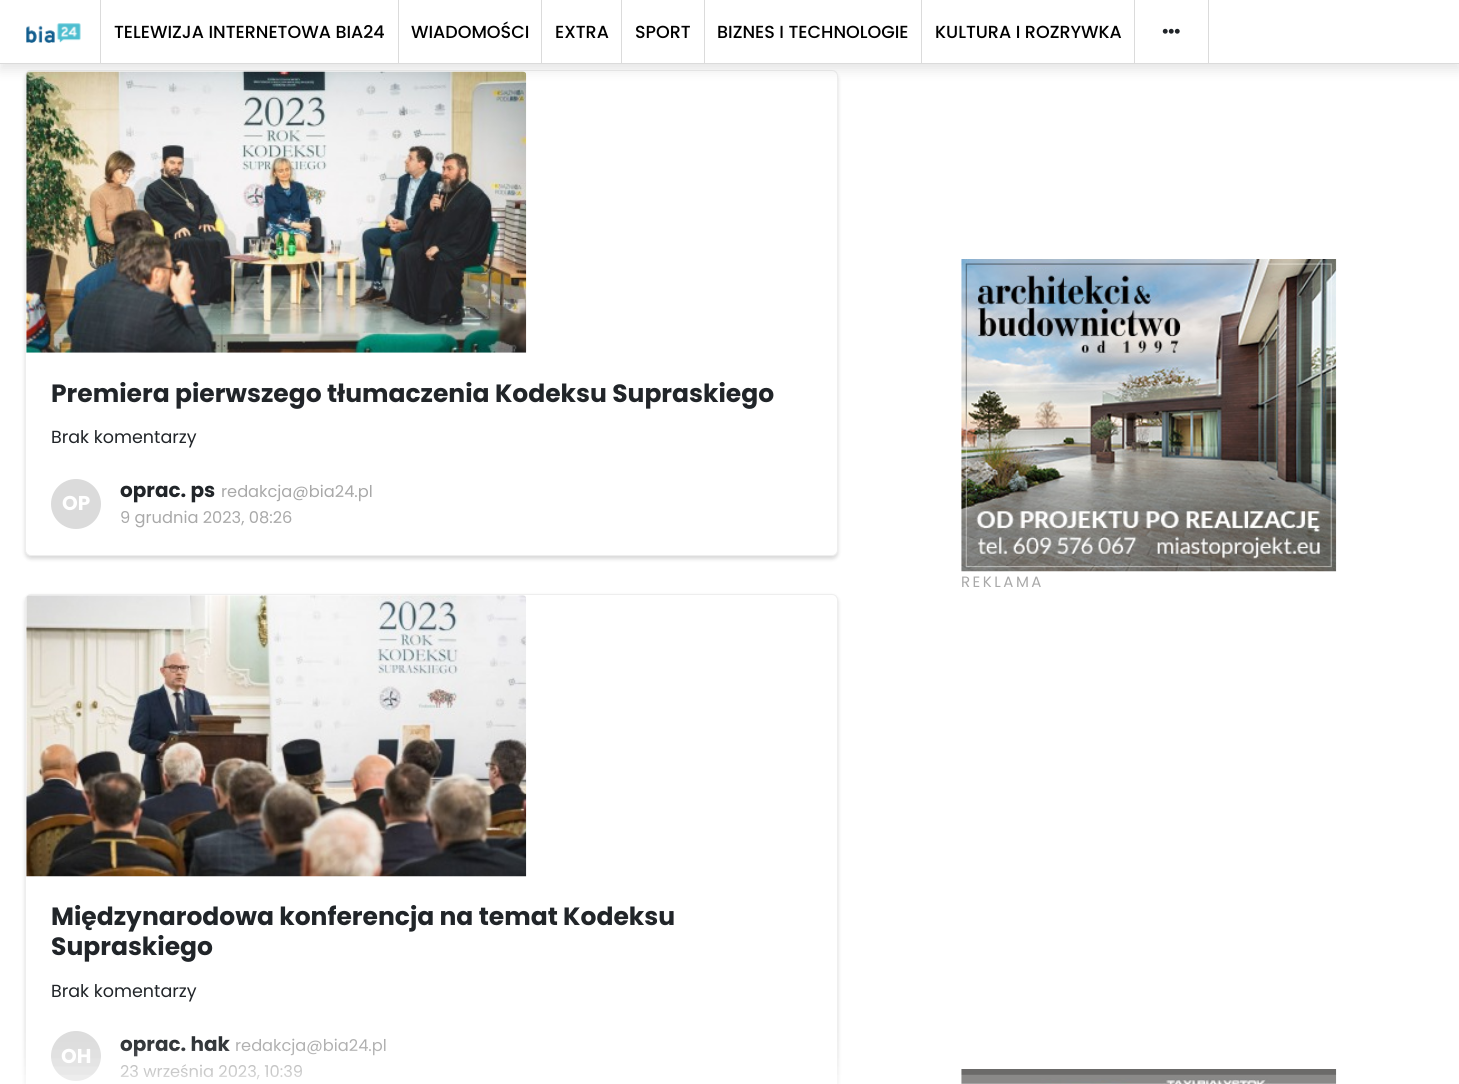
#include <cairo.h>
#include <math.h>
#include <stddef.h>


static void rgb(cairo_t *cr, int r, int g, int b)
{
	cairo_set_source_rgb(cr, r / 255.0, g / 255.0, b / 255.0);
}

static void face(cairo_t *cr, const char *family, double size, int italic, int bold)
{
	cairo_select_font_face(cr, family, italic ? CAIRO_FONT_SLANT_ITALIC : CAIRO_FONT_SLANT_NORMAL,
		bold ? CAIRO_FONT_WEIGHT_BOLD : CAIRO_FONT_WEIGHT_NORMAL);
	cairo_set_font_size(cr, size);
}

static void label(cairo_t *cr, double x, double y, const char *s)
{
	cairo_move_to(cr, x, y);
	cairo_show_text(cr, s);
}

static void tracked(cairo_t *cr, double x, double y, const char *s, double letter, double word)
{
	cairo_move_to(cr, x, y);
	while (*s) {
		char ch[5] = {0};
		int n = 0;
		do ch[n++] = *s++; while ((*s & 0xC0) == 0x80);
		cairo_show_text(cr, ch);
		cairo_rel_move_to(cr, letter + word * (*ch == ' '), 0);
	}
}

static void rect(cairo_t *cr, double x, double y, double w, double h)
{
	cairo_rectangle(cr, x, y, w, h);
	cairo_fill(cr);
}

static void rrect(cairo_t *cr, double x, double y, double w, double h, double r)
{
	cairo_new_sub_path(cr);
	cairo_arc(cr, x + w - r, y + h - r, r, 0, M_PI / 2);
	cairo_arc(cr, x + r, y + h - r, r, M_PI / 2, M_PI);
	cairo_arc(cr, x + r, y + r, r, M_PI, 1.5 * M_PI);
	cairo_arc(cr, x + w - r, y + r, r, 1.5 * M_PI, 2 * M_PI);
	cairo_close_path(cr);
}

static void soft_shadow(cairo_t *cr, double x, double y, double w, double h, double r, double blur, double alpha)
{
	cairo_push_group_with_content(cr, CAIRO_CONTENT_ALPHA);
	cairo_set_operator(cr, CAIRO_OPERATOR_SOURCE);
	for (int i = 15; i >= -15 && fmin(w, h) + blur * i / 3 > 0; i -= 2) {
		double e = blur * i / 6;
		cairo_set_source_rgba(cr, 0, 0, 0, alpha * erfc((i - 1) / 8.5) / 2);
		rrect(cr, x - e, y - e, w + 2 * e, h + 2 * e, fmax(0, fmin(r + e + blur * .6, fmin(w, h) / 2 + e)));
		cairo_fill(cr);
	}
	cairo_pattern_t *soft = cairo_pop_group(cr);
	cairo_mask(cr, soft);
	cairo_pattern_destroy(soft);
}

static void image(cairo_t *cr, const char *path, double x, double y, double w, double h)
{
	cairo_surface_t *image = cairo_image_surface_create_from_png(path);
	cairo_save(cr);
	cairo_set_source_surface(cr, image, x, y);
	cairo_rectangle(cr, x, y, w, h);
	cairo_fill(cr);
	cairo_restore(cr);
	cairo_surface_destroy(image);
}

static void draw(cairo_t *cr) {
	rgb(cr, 255, 255, 255);
	cairo_paint(cr);
	rgb(cr, 0, 0, 0);
	soft_shadow(cr, 25, 73, 813, 486, 6, 2, 0.15);
	rgb(cr, 255, 255, 255);
	rrect(cr, 25.5, 70.5, 812, 485, 5.5);
	cairo_fill_preserve(cr);
	rgb(cr, 238, 238, 238);
	cairo_set_line_width(cr, 1);
	cairo_stroke(cr);
	image(cr, "image2.png", 26, 71, 501, 282);
	rgb(cr, 0, 0, 0);
	soft_shadow(cr, 0, 5, 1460, 65, 0, 6, 0.1);
	rgb(cr, 255, 255, 255);
	rect(cr, 0, 0, 1459, 63);
	rgb(cr, 219, 219, 219);
	rect(cr, 0, 63, 1459, 1);
	image(cr, "image0.png", 26, 23, 55, 20);
	rect(cr, 100, 0, 1, 63);
	face(cr, "Poppins Medium", 17.5, 0, 0);
	rgb(cr, 0, 0, 0);
	label(cr, 114, 38, "TELEWIZJA INTERNETOWA BIA24");
	rgb(cr, 219, 219, 219);
	rect(cr, 398, 0, 1, 63);
	rgb(cr, 0, 0, 0);
	label(cr, 411, 38, "WIADOMOŚCI");
	rgb(cr, 219, 219, 219);
	rect(cr, 541, 0, 1, 63);
	rgb(cr, 0, 0, 0);
	label(cr, 555, 38, "EXTRA");
	rgb(cr, 219, 219, 219);
	rect(cr, 621, 0, 1, 63);
	rgb(cr, 0, 0, 0);
	label(cr, 635, 38, "SPORT");
	rgb(cr, 219, 219, 219);
	rect(cr, 704, 0, 1, 63);
	rgb(cr, 0, 0, 0);
	label(cr, 717, 38, "BIZNES I TECHNOLOGIE");
	rgb(cr, 219, 219, 219);
	rect(cr, 921, 0, 1, 63);
	rgb(cr, 0, 0, 0);
	label(cr, 935, 38, "KULTURA I ROZRYWKA");
	rgb(cr, 219, 219, 219);
	rect(cr, 1208, 0, 1, 63);
	rect(cr, 1134, 0, 1, 63);
	image(cr, "image1.png", 1162, 28, 18, 6);
	face(cr, "Poppins", 25, 0, 1);
	rgb(cr, 33, 37, 41);
	label(cr, 51, 402, "Premiera pierwszego tłumaczenia Kodeksu Supraskiego");
	face(cr, "Poppins", 17.5, 0, 0);
	label(cr, 51, 443, "Brak komentarzy");
	rgb(cr, 219, 219, 219);
	cairo_new_path(cr);
	cairo_arc(cr, 76, 504, 25, 0, 2 * M_PI);
	cairo_fill(cr);
	face(cr, "Poppins", 20, 0, 1);
	rgb(cr, 255, 255, 255);
	label(cr, 62, 510, "OP");
	rgb(cr, 33, 37, 41);
	label(cr, 120, 497, "oprac. ps");
	face(cr, "Poppins", 16.25, 0, 0);
	rgb(cr, 169, 169, 169);
	label(cr, 221, 497, "redakcja@bia24.pl");
	label(cr, 120, 523, "9 grudnia 2023, 08:26");
	rgb(cr, 0, 0, 0);
	soft_shadow(cr, 25, 596, 813, 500, 6, 2, 0.15);
	rgb(cr, 255, 255, 255);
	rrect(cr, 25.5, 594.5, 812, 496, 5.5);
	cairo_fill_preserve(cr);
	rgb(cr, 238, 238, 238);
	cairo_stroke(cr);
	image(cr, "image3.png", 26, 595, 501, 282);
	face(cr, "Poppins", 25, 0, 1);
	rgb(cr, 33, 37, 41);
	label(cr, 51, 925, "Międzynarodowa konferencja na temat Kodeksu");
	label(cr, 51, 955, "Supraskiego");
	face(cr, "Poppins", 17.5, 0, 0);
	label(cr, 51, 997, "Brak komentarzy");
	rgb(cr, 219, 219, 219);
	cairo_new_path(cr);
	cairo_arc(cr, 76, 1056, 25, 0, 2 * M_PI);
	cairo_fill(cr);
	face(cr, "Poppins", 20, 0, 1);
	rgb(cr, 255, 255, 255);
	label(cr, 61, 1063, "OH");
	rgb(cr, 33, 37, 41);
	label(cr, 120, 1051, "oprac. hak");
	face(cr, "Poppins", 16.25, 0, 0);
	rgb(cr, 169, 169, 169);
	label(cr, 235, 1051, "redakcja@bia24.pl");
	label(cr, 120, 1077, "23 września 2023, 10:39");
	image(cr, "image4.png", 961, 259, 376, 313);
	face(cr, "Poppins", 15, 0, 0);
	tracked(cr, 961, 587, "REKLAMA", 2.5, 0);
	image(cr, "image5.png", 961, 1069, 376, 15);
	rgb(cr, 255, 255, 255);
	soft_shadow(cr, 0, 1079, 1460, 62, 0, 25, 1);
}

int main(void) {
	cairo_surface_t *surface = cairo_image_surface_create(CAIRO_FORMAT_RGB24, 1459, 1084);
	cairo_t *cr = cairo_create(surface);
	cairo_font_options_t *options = cairo_font_options_create();
	cairo_font_options_set_hint_metrics(options, CAIRO_HINT_METRICS_OFF);
	cairo_font_options_set_hint_style(options, CAIRO_HINT_STYLE_NONE);
	cairo_set_font_options(cr, options);
	cairo_set_miter_limit(cr, 4);
	draw(cr);
	cairo_surface_write_to_png(surface, "render.png");
	cairo_font_options_destroy(options);
	cairo_destroy(cr);
	cairo_surface_destroy(surface);
	return 0;
}
